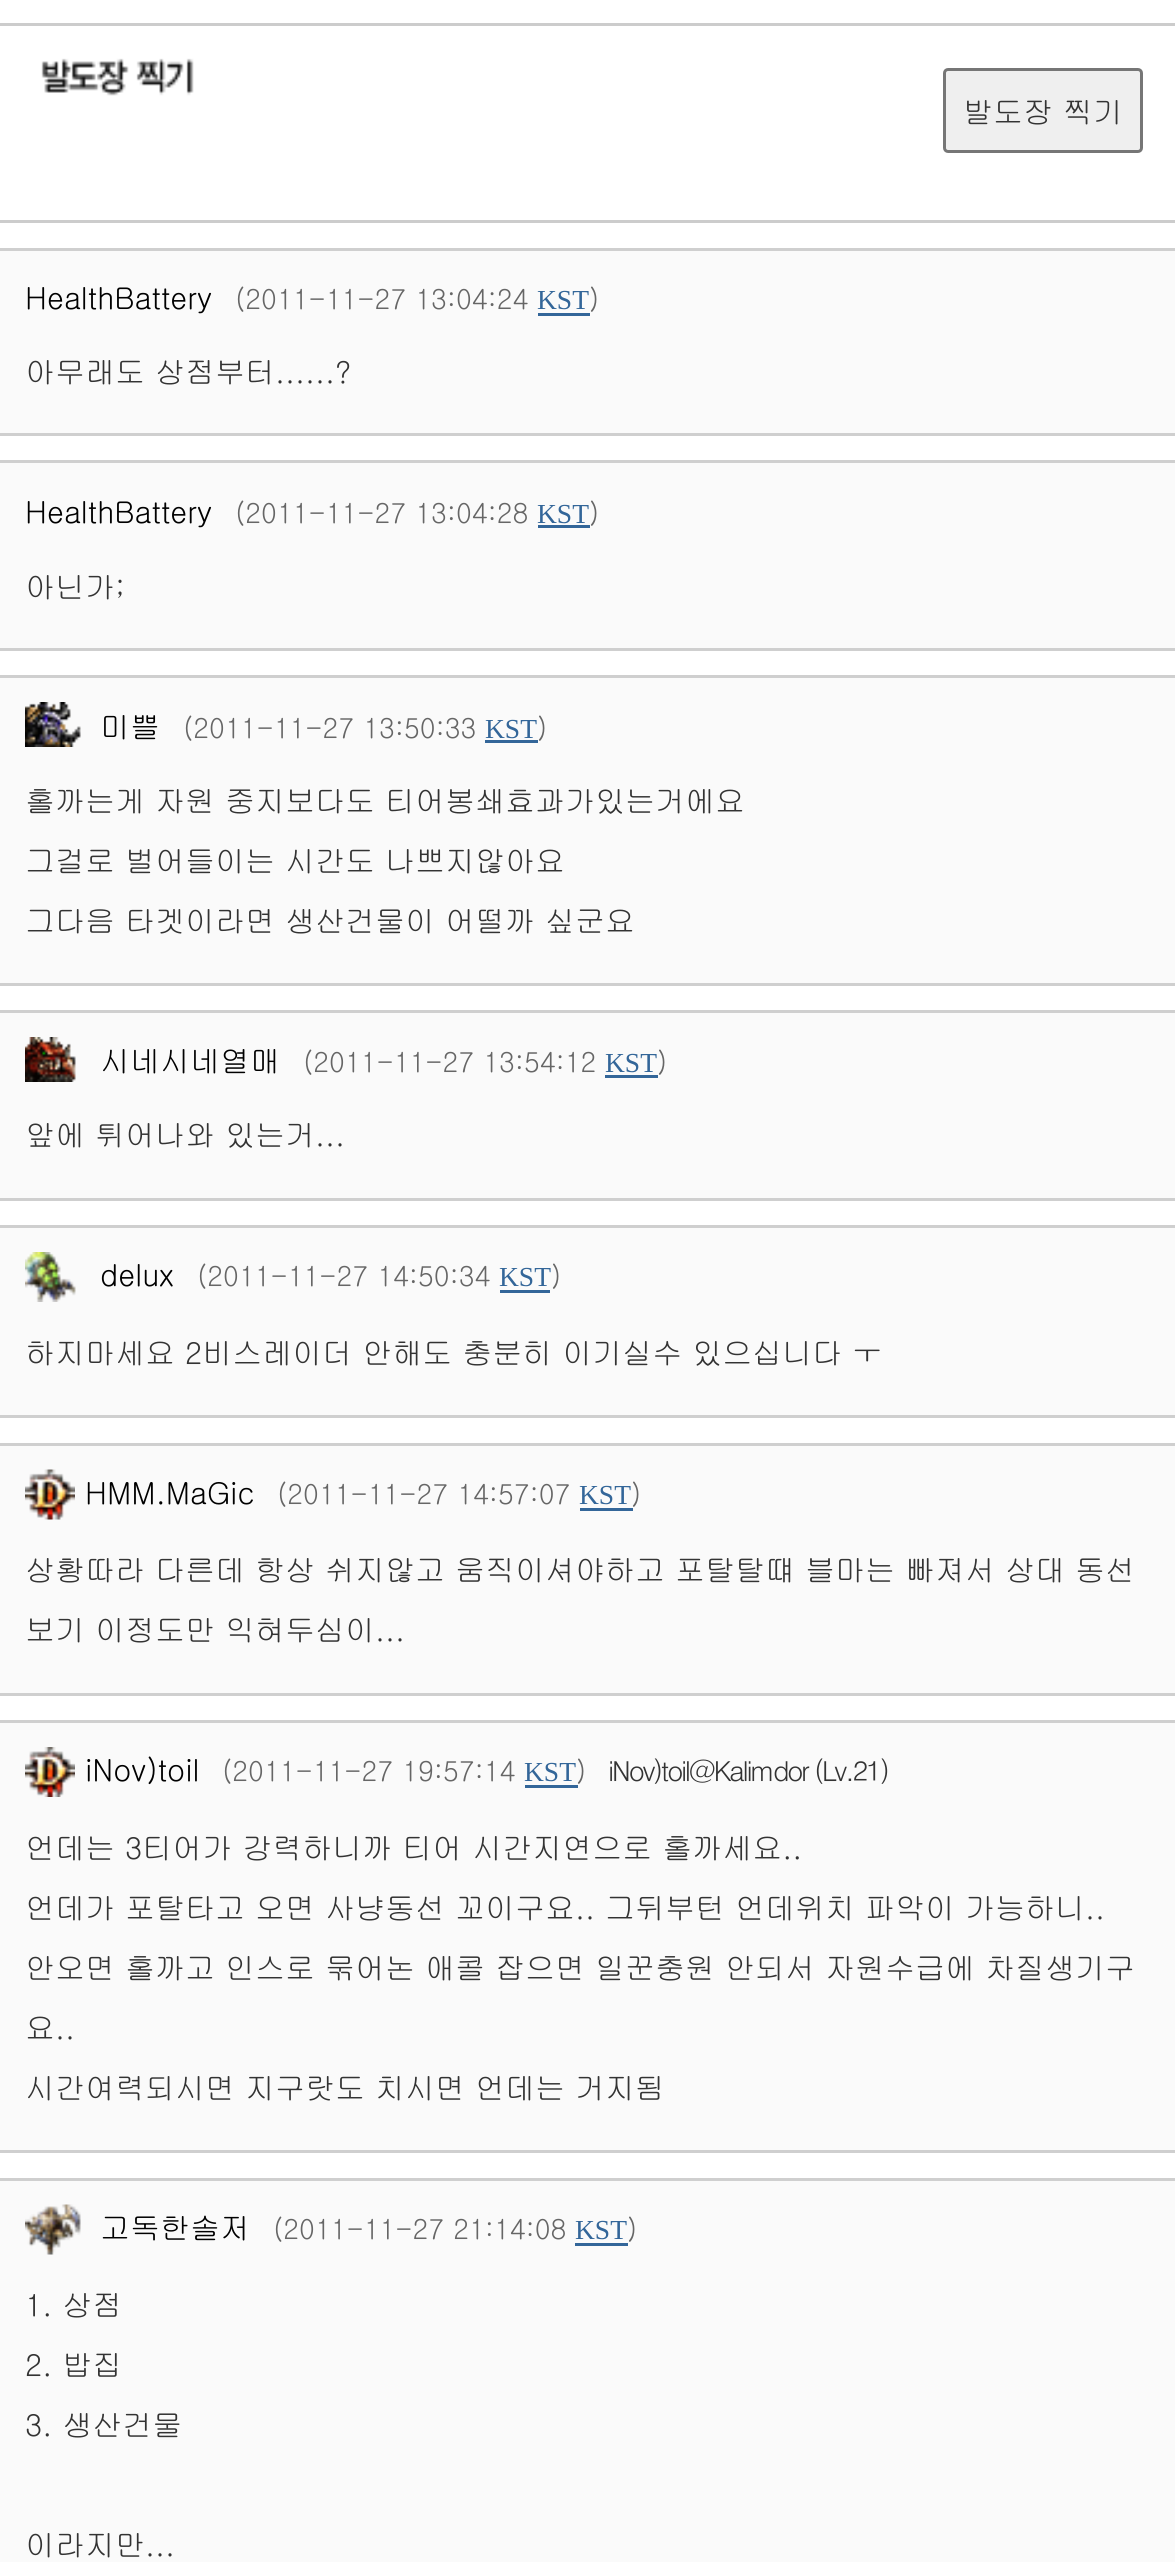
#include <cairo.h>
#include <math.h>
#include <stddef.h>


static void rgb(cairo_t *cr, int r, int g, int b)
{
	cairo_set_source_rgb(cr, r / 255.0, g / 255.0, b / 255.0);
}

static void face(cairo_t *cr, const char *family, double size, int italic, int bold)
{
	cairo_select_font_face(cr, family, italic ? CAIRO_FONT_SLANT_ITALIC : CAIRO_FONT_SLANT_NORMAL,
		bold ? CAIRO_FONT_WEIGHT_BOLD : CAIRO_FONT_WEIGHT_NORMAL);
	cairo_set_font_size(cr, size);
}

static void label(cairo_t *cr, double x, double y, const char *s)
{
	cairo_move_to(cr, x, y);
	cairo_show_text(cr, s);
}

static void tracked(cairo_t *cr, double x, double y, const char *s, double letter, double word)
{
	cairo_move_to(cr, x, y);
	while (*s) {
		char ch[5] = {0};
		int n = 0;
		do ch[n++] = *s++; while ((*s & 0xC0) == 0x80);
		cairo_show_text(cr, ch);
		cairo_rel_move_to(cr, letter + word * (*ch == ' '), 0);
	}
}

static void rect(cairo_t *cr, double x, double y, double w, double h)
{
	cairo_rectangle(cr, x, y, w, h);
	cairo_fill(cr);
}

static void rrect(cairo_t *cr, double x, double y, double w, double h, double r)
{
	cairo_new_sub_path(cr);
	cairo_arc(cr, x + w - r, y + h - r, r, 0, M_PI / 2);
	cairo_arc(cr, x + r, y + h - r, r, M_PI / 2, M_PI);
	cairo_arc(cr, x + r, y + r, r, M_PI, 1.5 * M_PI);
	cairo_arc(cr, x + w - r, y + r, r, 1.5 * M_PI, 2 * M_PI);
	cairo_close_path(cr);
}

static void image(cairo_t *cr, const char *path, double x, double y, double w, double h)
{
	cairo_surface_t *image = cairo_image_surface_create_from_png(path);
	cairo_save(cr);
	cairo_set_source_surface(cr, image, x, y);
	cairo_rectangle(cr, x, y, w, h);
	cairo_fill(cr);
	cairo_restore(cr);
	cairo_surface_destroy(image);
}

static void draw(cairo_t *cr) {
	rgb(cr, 255, 255, 255);
	cairo_paint(cr);
	rgb(cr, 204, 204, 204);
	rect(cr, 0, 23, 1175, 3);
	rect(cr, 0, 220, 1175, 3);
	image(cr, "image0.png", 41, 58, 153, 38);
	rgb(cr, 239, 239, 239);
	rrect(cr, 944.5, 69.5, 197, 82, 3.5);
	cairo_fill_preserve(cr);
	rgb(cr, 118, 118, 118);
	cairo_set_line_width(cr, 3);
	cairo_stroke(cr);
	face(cr, "Gulim", 30, 0, 0);
	rgb(cr, 51, 51, 51);
	label(cr, 963, 123, "발도장 찍기");
	rgb(cr, 250, 250, 250);
	rect(cr, 0, 251, 1175, 182);
	rgb(cr, 207, 207, 207);
	rect(cr, 0, 248, 1175, 3);
	rect(cr, 0, 433, 1175, 3);
	rgb(cr, 0, 0, 0);
	label(cr, 25, 309, "HealthBattery");
	face(cr, "Gulim", 27.5, 0, 0);
	rgb(cr, 102, 102, 102);
	label(cr, 235, 309, "(2011-11-27 13:04:24");
	face(cr, "Liberation Serif", 27.5, 0, 0);
	rgb(cr, 51, 102, 153);
	label(cr, 537, 309, "KST");
	rect(cr, 538, 313, 52, 3);
	face(cr, "Gulim", 27.5, 0, 0);
	rgb(cr, 102, 102, 102);
	label(cr, 589, 309, ")");
	face(cr, "Gulim", 30, 0, 0);
	rgb(cr, 51, 51, 51);
	label(cr, 25, 383, "아무래도 상점부터......?");
	rgb(cr, 250, 250, 250);
	rect(cr, 0, 463, 1175, 185);
	rgb(cr, 207, 207, 207);
	rect(cr, 0, 460, 1175, 3);
	rect(cr, 0, 648, 1175, 3);
	rgb(cr, 0, 0, 0);
	label(cr, 25, 523, "HealthBattery");
	face(cr, "Gulim", 27.5, 0, 0);
	rgb(cr, 102, 102, 102);
	label(cr, 235, 523, "(2011-11-27 13:04:28");
	face(cr, "Liberation Serif", 27.5, 0, 0);
	rgb(cr, 51, 102, 153);
	label(cr, 537, 523, "KST");
	rect(cr, 538, 525, 52, 3);
	face(cr, "Gulim", 27.5, 0, 0);
	rgb(cr, 102, 102, 102);
	label(cr, 589, 523, ")");
	face(cr, "Gulim", 30, 0, 0);
	rgb(cr, 51, 51, 51);
	label(cr, 25, 598, "아닌가;");
	rgb(cr, 250, 250, 250);
	rect(cr, 0, 678, 1175, 305);
	rgb(cr, 207, 207, 207);
	rect(cr, 0, 675, 1175, 3);
	rect(cr, 0, 983, 1175, 3);
	image(cr, "image1.png", 25, 702, 56, 45);
	rgb(cr, 0, 0, 0);
	label(cr, 100, 738, "미쁠");
	face(cr, "Gulim", 27.5, 0, 0);
	rgb(cr, 102, 102, 102);
	label(cr, 183, 738, "(2011-11-27 13:50:33");
	face(cr, "Liberation Serif", 27.5, 0, 0);
	rgb(cr, 51, 102, 153);
	label(cr, 485, 738, "KST");
	rect(cr, 485, 740, 53, 3);
	face(cr, "Gulim", 27.5, 0, 0);
	rgb(cr, 102, 102, 102);
	label(cr, 537, 738, ")");
	face(cr, "Gulim", 30, 0, 0);
	rgb(cr, 51, 51, 51);
	label(cr, 25, 812, "홀까는게 자원 중지보다도 티어봉쇄효과가있는거에요");
	label(cr, 25, 872, "그걸로 벌어들이는 시간도 나쁘지않아요");
	label(cr, 25, 932, "그다음 타겟이라면 생산건물이 어떨까 싶군요");
	rgb(cr, 250, 250, 250);
	rect(cr, 0, 1013, 1175, 185);
	rgb(cr, 207, 207, 207);
	rect(cr, 0, 1010, 1175, 3);
	rect(cr, 0, 1198, 1175, 3);
	image(cr, "image2.png", 25, 1037, 51, 45);
	rgb(cr, 0, 0, 0);
	label(cr, 100, 1072, "시네시네열매");
	face(cr, "Gulim", 27.5, 0, 0);
	rgb(cr, 102, 102, 102);
	label(cr, 303, 1072, "(2011-11-27 13:54:12");
	face(cr, "Liberation Serif", 27.5, 0, 0);
	rgb(cr, 51, 102, 153);
	label(cr, 605, 1072, "KST");
	rect(cr, 605, 1075, 53, 3);
	face(cr, "Gulim", 27.5, 0, 0);
	rgb(cr, 102, 102, 102);
	label(cr, 657, 1072, ")");
	face(cr, "Gulim", 30, 0, 0);
	rgb(cr, 51, 51, 51);
	label(cr, 25, 1146, "앞에 튀어나와 있는거...");
	rgb(cr, 250, 250, 250);
	rect(cr, 0, 1228, 1175, 187);
	rgb(cr, 207, 207, 207);
	rect(cr, 0, 1225, 1175, 3);
	rect(cr, 0, 1415, 1175, 3);
	image(cr, "image3.png", 25, 1252, 51, 50);
	rgb(cr, 0, 0, 0);
	label(cr, 100, 1286, "delux");
	face(cr, "Gulim", 27.5, 0, 0);
	rgb(cr, 102, 102, 102);
	label(cr, 197, 1286, "(2011-11-27 14:50:34");
	face(cr, "Liberation Serif", 27.5, 0, 0);
	rgb(cr, 51, 102, 153);
	label(cr, 499, 1286, "KST");
	rect(cr, 500, 1290, 50, 3);
	face(cr, "Gulim", 27.5, 0, 0);
	rgb(cr, 102, 102, 102);
	label(cr, 551, 1286, ")");
	face(cr, "Gulim", 30, 0, 0);
	rgb(cr, 51, 51, 51);
	label(cr, 25, 1364, "하지마세요 2비스레이더 안해도 충분히 이기실수 있으십니다 ㅜ");
	rgb(cr, 250, 250, 250);
	rect(cr, 0, 1446, 1175, 247);
	rgb(cr, 207, 207, 207);
	rect(cr, 0, 1443, 1175, 3);
	rect(cr, 0, 1693, 1175, 3);
	image(cr, "image4.png", 25, 1469, 50, 51);
	rgb(cr, 0, 0, 0);
	label(cr, 85, 1504, "HMM.MaGic");
	face(cr, "Gulim", 27.5, 0, 0);
	rgb(cr, 102, 102, 102);
	label(cr, 277, 1504, "(2011-11-27 14:57:07");
	face(cr, "Liberation Serif", 27.5, 0, 0);
	rgb(cr, 51, 102, 153);
	label(cr, 579, 1504, "KST");
	rect(cr, 580, 1508, 53, 3);
	face(cr, "Gulim", 27.5, 0, 0);
	rgb(cr, 102, 102, 102);
	label(cr, 631, 1504, ")");
	face(cr, "Gulim", 30, 0, 0);
	rgb(cr, 51, 51, 51);
	label(cr, 25, 1581, "상황따라 다른데 항상 쉬지않고 움직이셔야하고 포탈탈떄 블마는 빠져서 상대 동선");
	label(cr, 25, 1641, "보기 이정도만 익혀두심이...");
	rgb(cr, 250, 250, 250);
	rect(cr, 0, 1723, 1175, 427);
	rgb(cr, 207, 207, 207);
	rect(cr, 0, 1720, 1175, 3);
	rect(cr, 0, 2150, 1175, 3);
	image(cr, "image5.png", 25, 1747, 50, 50);
	rgb(cr, 0, 0, 0);
	label(cr, 85, 1781, "iNov)toil");
	face(cr, "Gulim", 27.5, 0, 0);
	rgb(cr, 102, 102, 102);
	label(cr, 222, 1781, "(2011-11-27 19:57:14");
	face(cr, "Liberation Serif", 27.5, 0, 0);
	rgb(cr, 51, 102, 153);
	label(cr, 524, 1781, "KST");
	rect(cr, 525, 1785, 53, 3);
	face(cr, "Gulim", 27.5, 0, 0);
	rgb(cr, 102, 102, 102);
	label(cr, 576, 1781, ")");
	face(cr, "Dotum", 27.5, 0, 0);
	rgb(cr, 51, 51, 51);
	tracked(cr, 608, 1781, "iNov)toil@Kalimdor (Lv.21)", -2.5, 0);
	face(cr, "Gulim", 30, 0, 0);
	label(cr, 25, 1859, "언데는 3티어가 강력하니까 티어 시간지연으로 홀까세요..");
	label(cr, 25, 1919, "언데가 포탈타고 오면 사냥동선 꼬이구요.. 그뒤부턴 언데위치 파악이 가능하니..");
	label(cr, 25, 1979, "안오면 홀까고 인스로 묶어논 애콜 잡으면 일꾼충원 안되서 자원수급에 차질생기구");
	label(cr, 25, 2039, "요..");
	label(cr, 25, 2099, "시간여력되시면 지구랏도 치시면 언데는 거지됨");
	rgb(cr, 250, 250, 250);
	rect(cr, 0, 2181, 1175, 381);
	rgb(cr, 207, 207, 207);
	rect(cr, 0, 2178, 1175, 3);
	image(cr, "image6.png", 25, 2204, 56, 51);
	rgb(cr, 0, 0, 0);
	label(cr, 100, 2239, "고독한솔저");
	face(cr, "Gulim", 27.5, 0, 0);
	rgb(cr, 102, 102, 102);
	label(cr, 273, 2239, "(2011-11-27 21:14:08");
	face(cr, "Liberation Serif", 27.5, 0, 0);
	rgb(cr, 51, 102, 153);
	label(cr, 575, 2239, "KST");
	rect(cr, 575, 2243, 53, 3);
	face(cr, "Gulim", 27.5, 0, 0);
	rgb(cr, 102, 102, 102);
	label(cr, 627, 2239, ")");
	face(cr, "Gulim", 30, 0, 0);
	rgb(cr, 51, 51, 51);
	label(cr, 25, 2316, "1. 상점");
	label(cr, 25, 2376, "2. 밥집");
	label(cr, 25, 2436, "3. 생산건물");
	label(cr, 25, 2556, "이라지만...");
}

int main(void) {
	cairo_surface_t *surface = cairo_image_surface_create(CAIRO_FORMAT_RGB24, 1175, 2562);
	cairo_t *cr = cairo_create(surface);
	cairo_font_options_t *options = cairo_font_options_create();
	cairo_font_options_set_hint_metrics(options, CAIRO_HINT_METRICS_OFF);
	cairo_font_options_set_hint_style(options, CAIRO_HINT_STYLE_NONE);
	cairo_set_font_options(cr, options);
	cairo_set_miter_limit(cr, 4);
	draw(cr);
	cairo_surface_write_to_png(surface, "render.png");
	cairo_font_options_destroy(options);
	cairo_destroy(cr);
	cairo_surface_destroy(surface);
	return 0;
}
